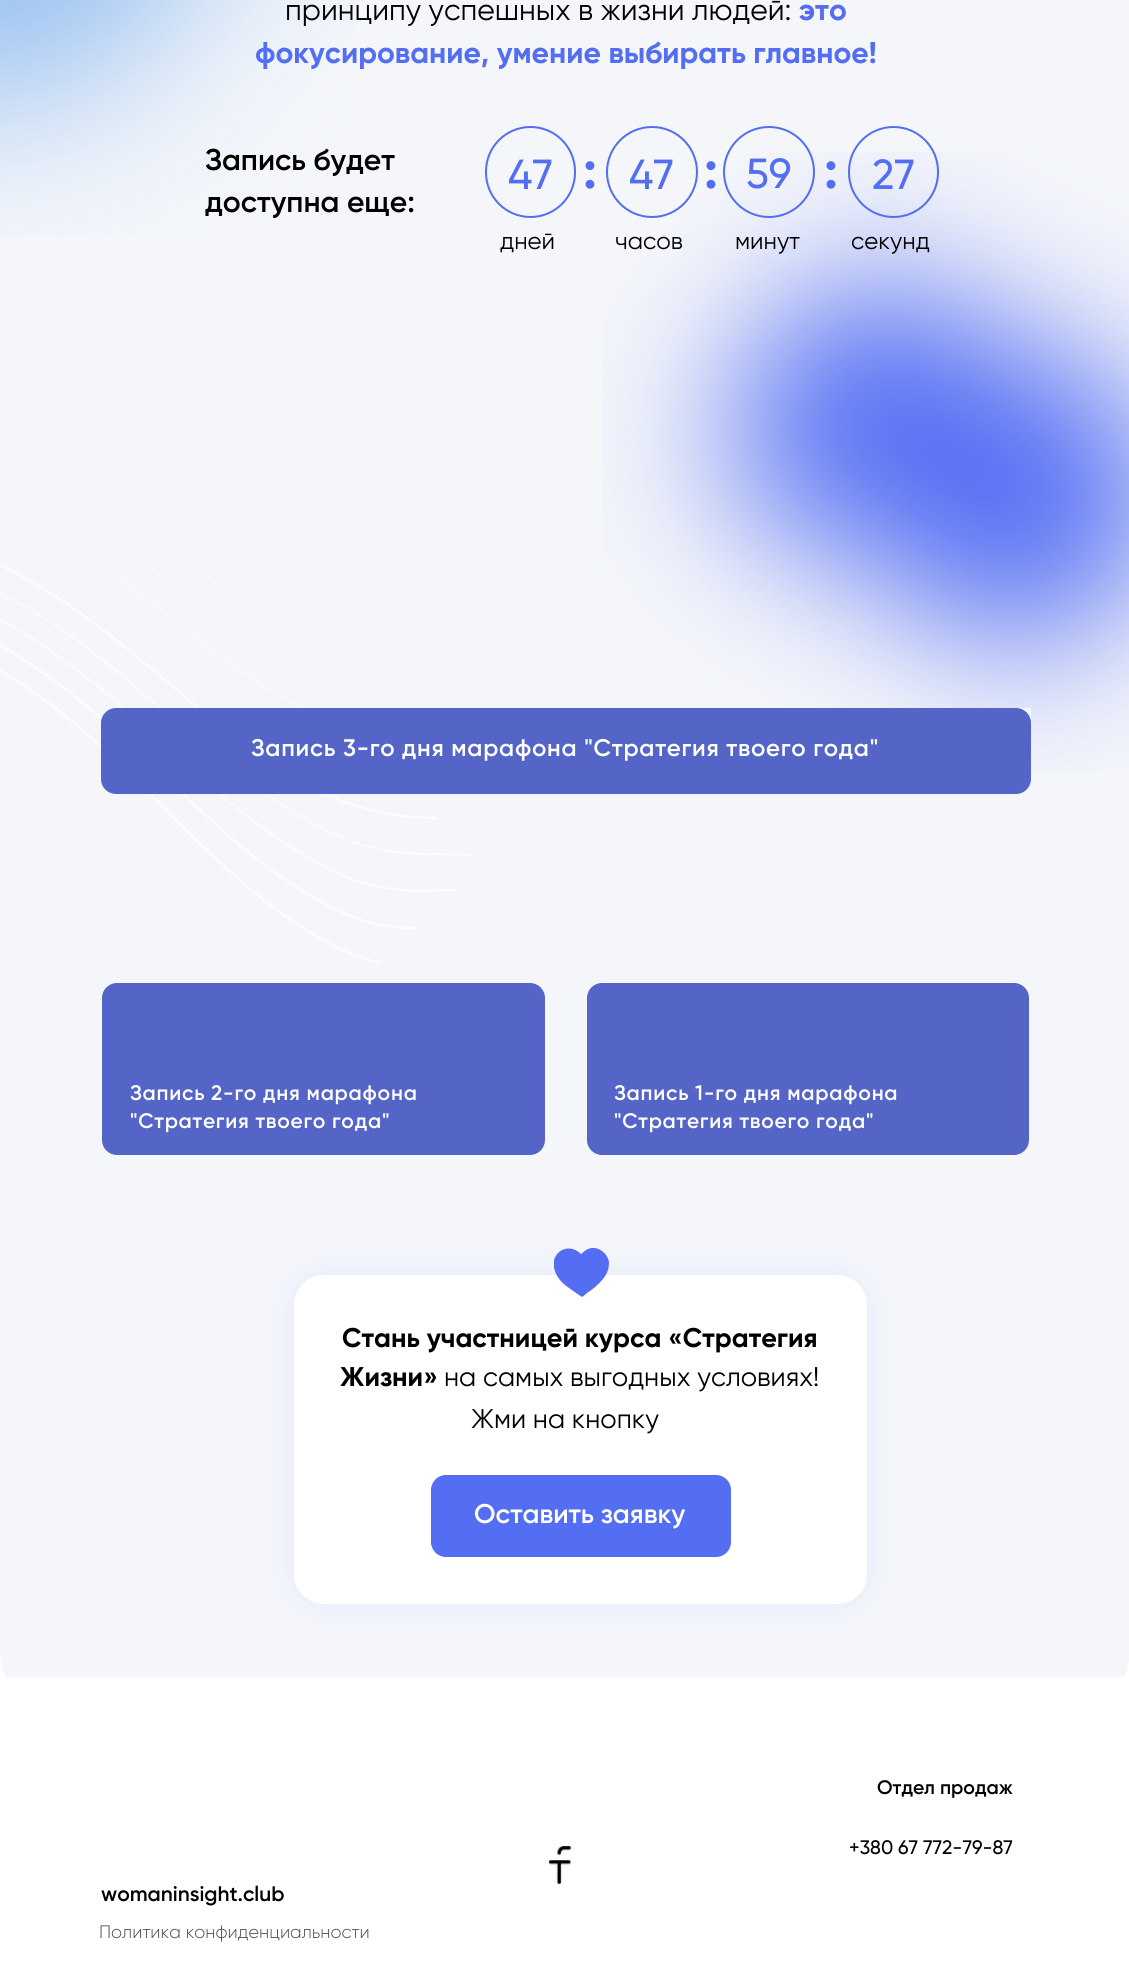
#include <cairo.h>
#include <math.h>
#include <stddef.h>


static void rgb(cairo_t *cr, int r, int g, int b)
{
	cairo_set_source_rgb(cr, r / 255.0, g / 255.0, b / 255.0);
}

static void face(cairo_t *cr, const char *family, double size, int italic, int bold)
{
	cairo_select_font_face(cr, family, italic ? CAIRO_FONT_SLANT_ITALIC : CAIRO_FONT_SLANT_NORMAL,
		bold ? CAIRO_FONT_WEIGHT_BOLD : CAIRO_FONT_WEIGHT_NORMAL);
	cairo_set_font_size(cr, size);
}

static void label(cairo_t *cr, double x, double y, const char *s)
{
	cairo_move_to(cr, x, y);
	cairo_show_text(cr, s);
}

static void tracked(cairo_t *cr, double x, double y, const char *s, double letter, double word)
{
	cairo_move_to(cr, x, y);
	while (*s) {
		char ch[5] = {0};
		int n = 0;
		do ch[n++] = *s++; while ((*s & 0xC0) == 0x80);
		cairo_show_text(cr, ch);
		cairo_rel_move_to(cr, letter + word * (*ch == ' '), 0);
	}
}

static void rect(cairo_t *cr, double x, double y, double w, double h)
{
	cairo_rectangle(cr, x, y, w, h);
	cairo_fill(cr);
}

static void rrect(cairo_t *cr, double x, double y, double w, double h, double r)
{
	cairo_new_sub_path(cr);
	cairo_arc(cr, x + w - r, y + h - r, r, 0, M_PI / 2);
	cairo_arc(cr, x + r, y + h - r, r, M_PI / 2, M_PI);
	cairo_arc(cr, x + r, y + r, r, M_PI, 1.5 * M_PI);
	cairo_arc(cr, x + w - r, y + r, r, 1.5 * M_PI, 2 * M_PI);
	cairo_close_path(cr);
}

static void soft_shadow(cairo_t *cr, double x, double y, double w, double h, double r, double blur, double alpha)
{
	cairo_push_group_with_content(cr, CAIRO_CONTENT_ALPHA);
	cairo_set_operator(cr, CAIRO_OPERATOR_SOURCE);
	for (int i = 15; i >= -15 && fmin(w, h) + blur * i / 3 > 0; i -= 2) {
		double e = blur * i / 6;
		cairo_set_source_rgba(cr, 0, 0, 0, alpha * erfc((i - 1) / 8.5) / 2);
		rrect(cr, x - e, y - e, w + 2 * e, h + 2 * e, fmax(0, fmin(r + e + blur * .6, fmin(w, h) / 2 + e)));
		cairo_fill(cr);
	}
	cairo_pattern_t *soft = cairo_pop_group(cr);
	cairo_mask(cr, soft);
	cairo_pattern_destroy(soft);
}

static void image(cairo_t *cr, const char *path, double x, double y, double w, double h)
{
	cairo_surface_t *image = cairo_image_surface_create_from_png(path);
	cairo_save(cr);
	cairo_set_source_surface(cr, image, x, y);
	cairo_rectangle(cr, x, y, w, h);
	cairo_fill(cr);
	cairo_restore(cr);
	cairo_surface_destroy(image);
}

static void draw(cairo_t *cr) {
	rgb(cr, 255, 255, 255);
	cairo_paint(cr);
	cairo_save(cr);
	cairo_rectangle(cr, 0, 0, 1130, 1677);
	cairo_clip(cr);
	rgb(cr, 244, 246, 250);
	rrect(cr, 0, -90, 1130, 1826, 90);
	cairo_fill(cr);
	cairo_restore(cr);
	image(cr, "image0.png", 0, 0, 355, 235);
	face(cr, "Gilroy", 30, 0, 0);
	rgb(cr, 0, 0, 0);
	label(cr, 285, 20, "принципу успешных в жизни людей:");
	face(cr, "Gilroy", 30, 0, 1);
	rgb(cr, 83, 109, 243);
	label(cr, 799, 20, "это");
	label(cr, 255, 63, "фокусирование, умение выбирать главное!");
	face(cr, "Gilroy SemiBold", 30, 0, 0);
	rgb(cr, 0, 0, 0);
	label(cr, 205, 170, "Запись будет");
	label(cr, 205, 212, "доступна еще:");
	rrect(cr, 486, 127, 89, 90, 44.5);
	rgb(cr, 83, 109, 243);
	cairo_stroke(cr);
	image(cr, "image1.png", 602, 152, 527, 620);
	cairo_arc(cr, 652, 172, 45, 0, 2 * M_PI);
	cairo_stroke(cr);
	cairo_arc(cr, 769, 172, 45, 0, 2 * M_PI);
	cairo_stroke(cr);
	rrect(cr, 849, 127, 89, 90, 44.5);
	cairo_stroke(cr);
	face(cr, "Gilroy Medium", 42, 0, 0);
	label(cr, 508, 189, "47");
	face(cr, "Gilroy", 52, 0, 1);
	label(cr, 583, 188, ":");
	face(cr, "Gilroy Medium", 42, 0, 0);
	label(cr, 629, 189, "47");
	face(cr, "Gilroy", 52, 0, 1);
	label(cr, 704, 188, ":");
	face(cr, "Gilroy Medium", 42, 0, 0);
	label(cr, 746, 188, "59");
	face(cr, "Gilroy", 52, 0, 1);
	label(cr, 824, 188, ":");
	face(cr, "Gilroy Medium", 42, 0, 0);
	label(cr, 872, 189, "27");
	face(cr, "Gilroy", 24, 0, 0);
	rgb(cr, 0, 0, 0);
	label(cr, 500, 249, "дней");
	label(cr, 615, 249, "часов");
	label(cr, 735, 249, "минут");
	label(cr, 851, 249, "секунд");
	image(cr, "image2.png", 0, 564, 472, 399);
	rgb(cr, 244, 246, 250);
	rect(cr, 101, 708, 930, 86);
	rgb(cr, 84, 101, 199);
	rrect(cr, 101, 708, 930, 86, 15);
	cairo_fill(cr);
	face(cr, "Gilroy SemiBold", 24, 0, 0);
	rgb(cr, 255, 255, 255);
	tracked(cr, 251, 756, "Запись 3-го дня марафона \"Стратегия твоего года\"", 0.75, 0);
	rgb(cr, 84, 101, 199);
	rrect(cr, 102, 983, 443, 172, 15);
	cairo_fill(cr);
	rrect(cr, 587, 983, 442, 172, 15);
	cairo_fill(cr);
	face(cr, "Gilroy SemiBold", 21, 0, 0);
	rgb(cr, 255, 255, 255);
	tracked(cr, 130, 1100, "Запись 2-го дня марафона", 0.75, 0);
	tracked(cr, 130, 1128, "\"Стратегия твоего года\"", 0.75, 0);
	tracked(cr, 614, 1100, "Запись 1-го дня марафона", 0.75, 0);
	tracked(cr, 614, 1128, "\"Стратегия твоего года\"", 0.75, 0);
	rgb(cr, 83, 109, 243);
	soft_shadow(cr, 294, 1275, 573, 329, 30, 15, 0.1);
	rgb(cr, 255, 255, 255);
	rrect(cr, 294, 1275, 573, 329, 30);
	cairo_fill(cr);
	cairo_save(cr);
	cairo_rectangle(cr, 554, 1248, 55, 50);
	cairo_clip(cr);
	rgb(cr, 83, 109, 243);
	cairo_new_path(cr);
	cairo_move_to(cr, 609, 1262);
	cairo_curve_to(cr, 609, 1269, 607, 1274, 603, 1279);
	cairo_curve_to(cr, 598, 1285, 593, 1289, 587, 1293);
	cairo_curve_to(cr, 582, 1297, 583, 1298, 579, 1295);
	cairo_line_to(cr, 569, 1288);
	cairo_curve_to(cr, 563, 1284, 557, 1278, 555, 1271);
	cairo_curve_to(cr, 548, 1255, 567, 1240, 581, 1254);
	cairo_line_to(cr, 586, 1250);
	cairo_curve_to(cr, 596, 1244, 607, 1252, 609, 1262);
	cairo_close_path(cr);
	cairo_fill(cr);
	cairo_restore(cr);
	face(cr, "Gilroy", 27, 0, 1);
	rgb(cr, 0, 0, 0);
	label(cr, 342, 1347, "Стань участницей курса «Стратегия");
	label(cr, 340, 1386, "Жизни»");
	face(cr, "Gilroy", 27, 0, 0);
	label(cr, 444, 1386, "на самых выгодных условиях!");
	label(cr, 471, 1428, "Жми на кнопку");
	rgb(cr, 83, 109, 243);
	rrect(cr, 431, 1475, 300, 82, 15);
	cairo_fill(cr);
	face(cr, "Gilroy SemiBold", 27, 0, 0);
	rgb(cr, 255, 255, 255);
	label(cr, 474, 1523, "Оставить заявку");
	face(cr, "Gilroy SemiBold", 19.5, 0, 0);
	rgb(cr, 0, 0, 0);
	label(cr, 877, 1794, "Отдел продаж");
	image(cr, "image3.png", 549, 1846, 23, 38);
	face(cr, "Gilroy Medium", 19.5, 0, 0);
	label(cr, 849, 1854, "+380 67 772-79-87");
	face(cr, "Gilroy SemiBold", 21, 0, 0);
	label(cr, 101, 1901, "womaninsight.club");
	face(cr, "Gilroy Light", 18, 0, 0);
	rgb(cr, 77, 77, 77);
	label(cr, 99, 1938, "Политика конфиденциальности");
}

int main(void) {
	cairo_surface_t *surface = cairo_image_surface_create(CAIRO_FORMAT_RGB24, 1129, 1968);
	cairo_t *cr = cairo_create(surface);
	cairo_font_options_t *options = cairo_font_options_create();
	cairo_font_options_set_hint_metrics(options, CAIRO_HINT_METRICS_OFF);
	cairo_font_options_set_hint_style(options, CAIRO_HINT_STYLE_NONE);
	cairo_set_font_options(cr, options);
	cairo_set_miter_limit(cr, 4);
	draw(cr);
	cairo_surface_write_to_png(surface, "render.png");
	cairo_font_options_destroy(options);
	cairo_destroy(cr);
	cairo_surface_destroy(surface);
	return 0;
}
